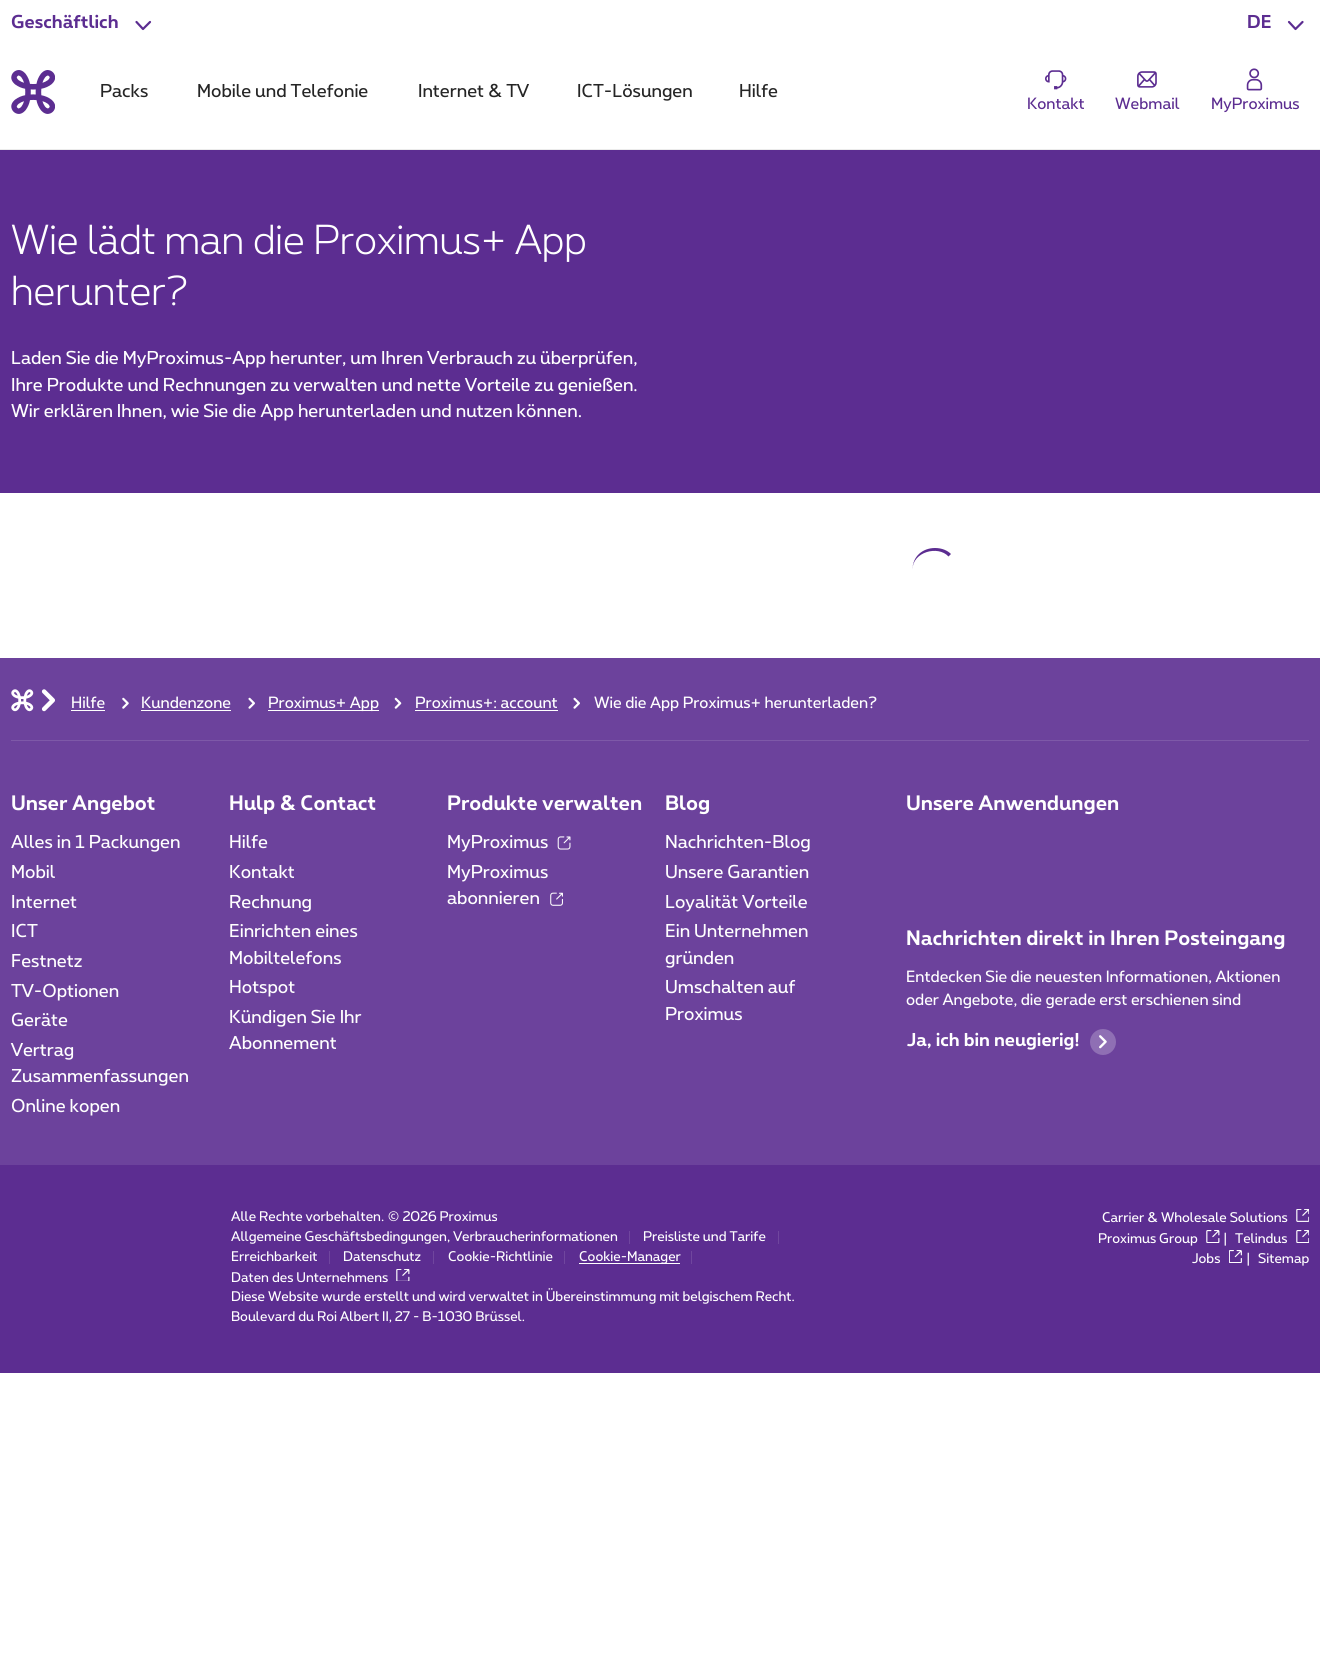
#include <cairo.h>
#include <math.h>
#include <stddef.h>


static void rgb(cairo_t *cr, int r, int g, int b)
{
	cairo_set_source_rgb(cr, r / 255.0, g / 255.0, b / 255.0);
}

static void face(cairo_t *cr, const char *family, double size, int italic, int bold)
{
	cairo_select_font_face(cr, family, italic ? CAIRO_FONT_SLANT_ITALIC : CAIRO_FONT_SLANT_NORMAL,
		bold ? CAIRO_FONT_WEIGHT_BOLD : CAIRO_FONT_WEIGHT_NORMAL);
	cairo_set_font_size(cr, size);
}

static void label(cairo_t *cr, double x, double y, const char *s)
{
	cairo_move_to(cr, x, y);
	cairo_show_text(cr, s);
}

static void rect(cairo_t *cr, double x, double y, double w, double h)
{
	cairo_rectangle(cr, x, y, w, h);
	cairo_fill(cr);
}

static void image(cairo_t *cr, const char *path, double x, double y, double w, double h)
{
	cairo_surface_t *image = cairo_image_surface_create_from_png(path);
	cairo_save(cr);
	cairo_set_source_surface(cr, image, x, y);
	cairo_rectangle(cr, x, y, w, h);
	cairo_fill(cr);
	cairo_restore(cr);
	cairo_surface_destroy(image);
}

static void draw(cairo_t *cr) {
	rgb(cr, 255, 255, 255);
	cairo_paint(cr);
	rgb(cr, 235, 235, 235);
	rect(cr, 0, 149, 1320, 1);
	face(cr, "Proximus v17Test", 17.6, 0, 1);
	rgb(cr, 92, 45, 145);
	label(cr, 11, 28, "Geschäftlich");
	cairo_new_path(cr);
	cairo_move_to(cr, 150, 22);
	cairo_line_to(cr, 143, 29);
	cairo_line_to(cr, 136.5, 22);
	cairo_set_line_width(cr, 2.2);
	cairo_set_line_cap(cr, CAIRO_LINE_CAP_ROUND);
	cairo_set_line_join(cr, CAIRO_LINE_JOIN_ROUND);
	cairo_stroke(cr);
	label(cr, 1247, 28, "DE");
	cairo_new_path(cr);
	cairo_move_to(cr, 1302.5, 22);
	cairo_line_to(cr, 1295.5, 29);
	cairo_line_to(cr, 1289, 22);
	cairo_stroke(cr);
	image(cr, "image0.png", 11, 70, 44, 44);
	face(cr, "Proximus v17Test", 17.6, 0, 0);
	rgb(cr, 37, 37, 37);
	label(cr, 100, 97, "Packs");
	label(cr, 197, 97, "Mobile und Telefonie");
	label(cr, 418, 97, "Internet & TV");
	label(cr, 577, 97, "ICT-Lösungen");
	label(cr, 739, 97, "Hilfe");
	image(cr, "image1.png", 1045, 70, 22, 20);
	face(cr, "Proximus v17Test", 15.4, 0, 0);
	rgb(cr, 92, 45, 145);
	label(cr, 1027, 109, "Kontakt");
	image(cr, "image2.png", 1137, 71, 20, 17);
	label(cr, 1115, 109, "Webmail");
	image(cr, "image3.png", 1246, 68, 17, 23);
	label(cr, 1211, 109, "MyProximus");
	rect(cr, 0, 150, 1320, 343);
	face(cr, "Proximus v17Test Light", 39.6, 0, 0);
	rgb(cr, 255, 255, 255);
	label(cr, 11, 254, "Wie lädt man die Proximus+ App");
	label(cr, 11, 305, "herunter?");
	face(cr, "Proximus v17Test", 17.6, 0, 0);
	label(cr, 11, 364, "Laden Sie die MyProximus-App herunter, um Ihren Verbrauch zu überprüfen,");
	label(cr, 11, 391, "Ihre Produkte und Rechnungen zu verwalten und nette Vorteile zu genießen.");
	label(cr, 11, 417, "Wir erklären Ihnen, wie Sie die App herunterladen und nutzen können.");
	rgb(cr, 92, 45, 145);
	cairo_new_path(cr);
	cairo_move_to(cr, 935, 548);
	cairo_curve_to(cr, 922.5, 548, 912.5, 556.5, 912.5, 569.5);
	cairo_curve_to(cr, 912.5, 552, 938, 545, 948.5, 556.5);
	cairo_line_to(cr, 951, 554);
	cairo_curve_to(cr, 947.5, 550.5, 942, 548, 935, 548);
	cairo_close_path(cr);
	cairo_fill(cr);
	rgb(cr, 108, 66, 156);
	rect(cr, 0, 658, 1320, 507);
	rgb(cr, 126, 89, 168);
	rect(cr, 11, 740, 1298, 1);
	image(cr, "image4.png", 11, 689, 23, 23);
	image(cr, "image5.png", 41, 689, 14, 23);
	face(cr, "Proximus v17Test", 15.4, 0, 0);
	rgb(cr, 255, 255, 255);
	label(cr, 71, 708, "Hilfe");
	rect(cr, 71, 710, 34, 1);
	image(cr, "image6.png", 122, 697, 7, 12);
	label(cr, 141, 708, "Kundenzone");
	rect(cr, 141, 710, 90, 1);
	image(cr, "image7.png", 248, 697, 7, 12);
	rect(cr, 268, 710, 111, 1);
	label(cr, 268, 708, "Proximus+ App");
	image(cr, "image8.png", 394, 697, 8, 12);
	label(cr, 415, 708, "Proximus+: account");
	rect(cr, 415, 710, 143, 1);
	image(cr, "image7.png", 573, 697, 7, 12);
	label(cr, 594, 708, "Wie die App Proximus+ herunterladen?");
	face(cr, "Proximus v17Test", 19.75, 0, 1);
	label(cr, 11, 810, "Unser Angebot");
	face(cr, "Proximus v17Test", 17.6, 0, 0);
	label(cr, 11, 848, "Alles in 1 Packungen");
	label(cr, 11, 878, "Mobil");
	label(cr, 11, 908, "Internet");
	label(cr, 11, 937, "ICT");
	label(cr, 11, 967, "Festnetz");
	label(cr, 11, 997, "TV-Optionen");
	label(cr, 11, 1026, "Geräte");
	label(cr, 11, 1056, "Vertrag");
	label(cr, 11, 1082, "Zusammenfassungen");
	label(cr, 11, 1112, "Online kopen");
	face(cr, "Proximus v17Test", 19.75, 0, 1);
	label(cr, 229, 810, "Hulp & Contact");
	face(cr, "Proximus v17Test", 17.6, 0, 0);
	label(cr, 229, 848, "Hilfe");
	label(cr, 229, 878, "Kontakt");
	label(cr, 229, 908, "Rechnung");
	label(cr, 229, 937, "Einrichten eines");
	label(cr, 229, 964, "Mobiltelefons");
	label(cr, 229, 993, "Hotspot");
	label(cr, 229, 1023, "Kündigen Sie Ihr");
	label(cr, 229, 1049, "Abonnement");
	face(cr, "Proximus v17Test", 19.75, 0, 1);
	label(cr, 447, 810, "Produkte verwalten");
	face(cr, "Proximus v17Test", 17.6, 0, 0);
	label(cr, 447, 848, "MyProximus");
	image(cr, "image9.png", 557, 836, 14, 14);
	label(cr, 447, 878, "MyProximus");
	label(cr, 447, 904, "abonnieren");
	image(cr, "image10.png", 550, 892, 13, 14);
	face(cr, "Proximus v17Test", 19.75, 0, 1);
	label(cr, 665, 810, "Blog");
	face(cr, "Proximus v17Test", 17.6, 0, 0);
	label(cr, 665, 848, "Nachrichten-Blog");
	label(cr, 665, 878, "Unsere Garantien");
	label(cr, 665, 908, "Loyalität Vorteile");
	label(cr, 665, 937, "Ein Unternehmen");
	label(cr, 665, 964, "gründen");
	label(cr, 665, 993, "Umschalten auf");
	label(cr, 665, 1020, "Proximus");
	face(cr, "Proximus v17Test", 19.75, 0, 1);
	label(cr, 906, 810, "Unsere Anwendungen");
	label(cr, 906, 945, "Nachrichten direkt in Ihren Posteingang");
	face(cr, "Proximus v17Test", 15.4, 0, 0);
	label(cr, 906, 982, "Entdecken Sie die neuesten Informationen, Aktionen");
	label(cr, 906, 1005, "oder Angebote, die gerade erst erschienen sind");
	face(cr, "Proximus v17Test", 17.6, 0, 1);
	label(cr, 907, 1046, "Ja, ich bin neugierig!");
	rgb(cr, 143, 111, 180);
	cairo_new_path(cr);
	cairo_arc(cr, 1103, 1042, 13, 0, 2 * M_PI);
	cairo_fill(cr);
	image(cr, "image11.png", 1099, 1035, 8, 14);
	rgb(cr, 92, 45, 145);
	rect(cr, 0, 1165, 1320, 208);
	face(cr, "Proximus v17Test", 13.2, 0, 0);
	rgb(cr, 255, 255, 255);
	label(cr, 231, 1221, "Alle Rechte vorbehalten. © 2026 Proximus");
	label(cr, 231, 1241, "Allgemeine Geschäftsbedingungen, Verbraucherinformationen");
	rgb(cr, 112, 70, 158);
	rect(cr, 629, 1231, 1, 13);
	rgb(cr, 255, 255, 255);
	label(cr, 643, 1241, "Preisliste und Tarife");
	rgb(cr, 112, 70, 158);
	rect(cr, 778, 1231, 1, 13);
	rgb(cr, 255, 255, 255);
	label(cr, 231, 1261, "Erreichbarkeit");
	rgb(cr, 112, 70, 158);
	rect(cr, 329, 1251, 1, 13);
	rgb(cr, 255, 255, 255);
	label(cr, 343, 1261, "Datenschutz");
	rgb(cr, 112, 70, 158);
	rect(cr, 433, 1251, 1, 13);
	rgb(cr, 255, 255, 255);
	label(cr, 448, 1261, "Cookie-Richtlinie");
	rgb(cr, 112, 70, 158);
	rect(cr, 564, 1251, 1, 13);
	rgb(cr, 255, 255, 255);
	rect(cr, 579, 1263, 101, 1);
	label(cr, 579, 1261, "Cookie-Manager");
	rgb(cr, 112, 70, 158);
	rect(cr, 691, 1251, 1, 13);
	rgb(cr, 255, 255, 255);
	label(cr, 231, 1282, "Daten des Unternehmens");
	image(cr, "image12.png", 396, 1269, 14, 12);
	label(cr, 231, 1301, "Diese Website wurde erstellt und wird verwaltet in Übereinstimmung mit belgischem Recht.");
	label(cr, 231, 1321, "Boulevard du Roi Albert II, 27 - B-1030 Brüssel.");
	label(cr, 1102, 1222, "Carrier & Wholesale Solutions");
	image(cr, "image13.png", 1296, 1209, 13, 13);
	label(cr, 1098, 1243, "Proximus Group");
	image(cr, "image14.png", 1206, 1230, 14, 13);
	label(cr, 1222, 1243, "|");
	label(cr, 1235, 1243, "Telindus");
	image(cr, "image15.png", 1296, 1230, 13, 13);
	label(cr, 1192, 1263, "Jobs");
	image(cr, "image16.png", 1229, 1250, 13, 13);
	label(cr, 1245, 1263, "|");
	label(cr, 1258, 1263, "Sitemap");
}

int main(void) {
	cairo_surface_t *surface = cairo_image_surface_create(CAIRO_FORMAT_RGB24, 1320, 1665);
	cairo_t *cr = cairo_create(surface);
	cairo_font_options_t *options = cairo_font_options_create();
	cairo_font_options_set_hint_metrics(options, CAIRO_HINT_METRICS_OFF);
	cairo_font_options_set_hint_style(options, CAIRO_HINT_STYLE_NONE);
	cairo_set_font_options(cr, options);
	cairo_set_miter_limit(cr, 4);
	draw(cr);
	cairo_surface_write_to_png(surface, "render.png");
	cairo_font_options_destroy(options);
	cairo_destroy(cr);
	cairo_surface_destroy(surface);
	return 0;
}
